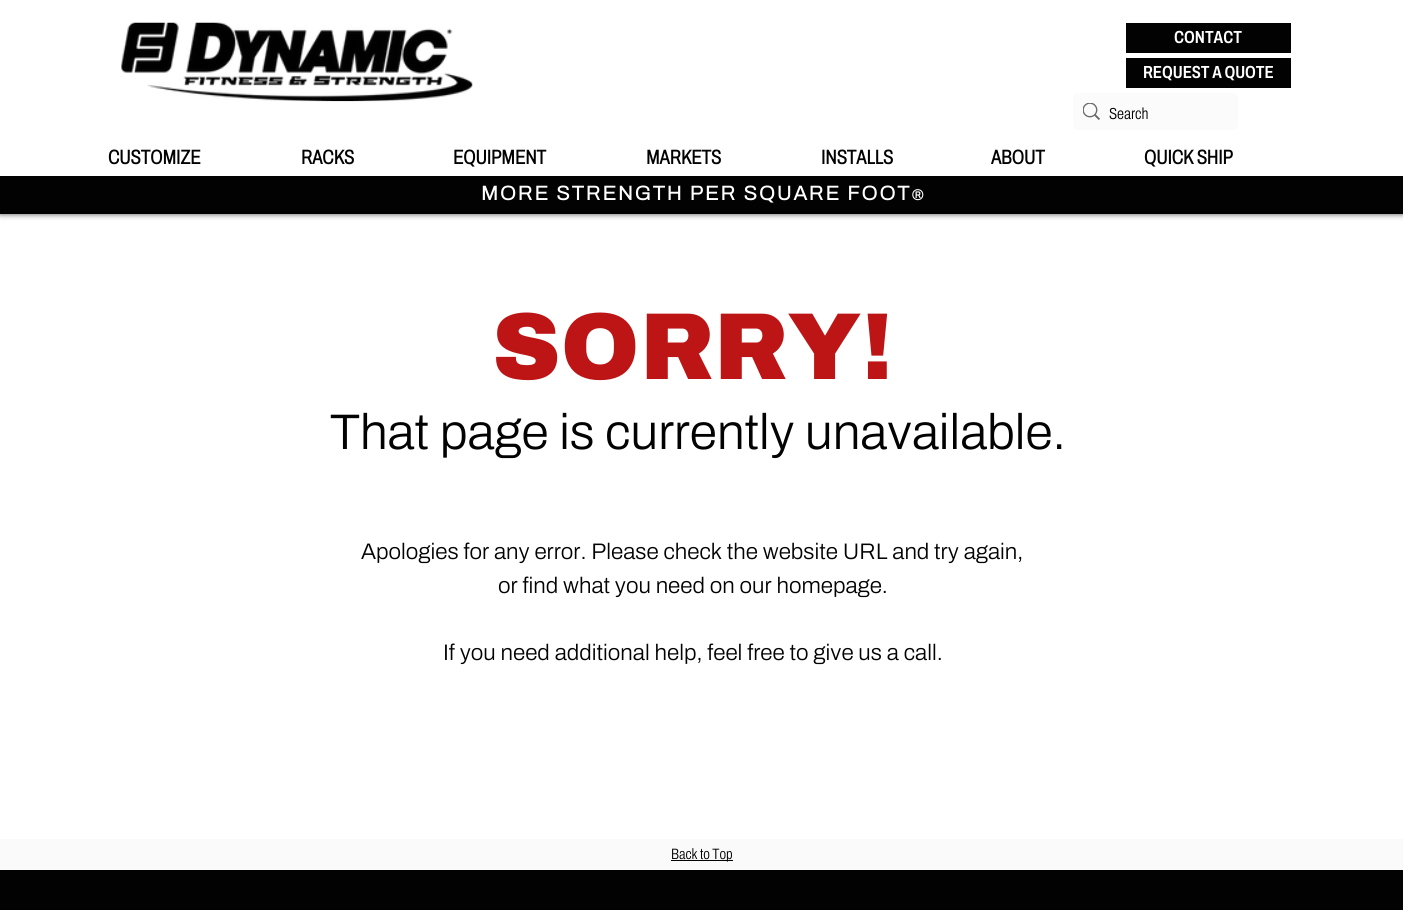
#include <cairo.h>
#include <math.h>
#include <stddef.h>


static void rgb(cairo_t *cr, int r, int g, int b)
{
	cairo_set_source_rgb(cr, r / 255.0, g / 255.0, b / 255.0);
}

static void face(cairo_t *cr, const char *family, double size, int italic, int bold)
{
	cairo_select_font_face(cr, family, italic ? CAIRO_FONT_SLANT_ITALIC : CAIRO_FONT_SLANT_NORMAL,
		bold ? CAIRO_FONT_WEIGHT_BOLD : CAIRO_FONT_WEIGHT_NORMAL);
	cairo_set_font_size(cr, size);
}

static void label(cairo_t *cr, double x, double y, const char *s)
{
	cairo_move_to(cr, x, y);
	cairo_show_text(cr, s);
}

static void tracked(cairo_t *cr, double x, double y, const char *s, double letter, double word)
{
	cairo_move_to(cr, x, y);
	while (*s) {
		char ch[5] = {0};
		int n = 0;
		do ch[n++] = *s++; while ((*s & 0xC0) == 0x80);
		cairo_show_text(cr, ch);
		cairo_rel_move_to(cr, letter + word * (*ch == ' '), 0);
	}
}

static void rect(cairo_t *cr, double x, double y, double w, double h)
{
	cairo_rectangle(cr, x, y, w, h);
	cairo_fill(cr);
}

static void rrect(cairo_t *cr, double x, double y, double w, double h, double r)
{
	cairo_new_sub_path(cr);
	cairo_arc(cr, x + w - r, y + h - r, r, 0, M_PI / 2);
	cairo_arc(cr, x + r, y + h - r, r, M_PI / 2, M_PI);
	cairo_arc(cr, x + r, y + r, r, M_PI, 1.5 * M_PI);
	cairo_arc(cr, x + w - r, y + r, r, 1.5 * M_PI, 2 * M_PI);
	cairo_close_path(cr);
}

static void soft_shadow(cairo_t *cr, double x, double y, double w, double h, double r, double blur, double alpha)
{
	cairo_push_group_with_content(cr, CAIRO_CONTENT_ALPHA);
	cairo_set_operator(cr, CAIRO_OPERATOR_SOURCE);
	for (int i = 15; i >= -15 && fmin(w, h) + blur * i / 3 > 0; i -= 2) {
		double e = blur * i / 6;
		cairo_set_source_rgba(cr, 0, 0, 0, alpha * erfc((i - 1) / 8.5) / 2);
		rrect(cr, x - e, y - e, w + 2 * e, h + 2 * e, fmax(0, fmin(r + e + blur * .6, fmin(w, h) / 2 + e)));
		cairo_fill(cr);
	}
	cairo_pattern_t *soft = cairo_pop_group(cr);
	cairo_mask(cr, soft);
	cairo_pattern_destroy(soft);
}

static void image(cairo_t *cr, const char *path, double x, double y, double w, double h)
{
	cairo_surface_t *image = cairo_image_surface_create_from_png(path);
	cairo_save(cr);
	cairo_set_source_surface(cr, image, x, y);
	cairo_rectangle(cr, x, y, w, h);
	cairo_fill(cr);
	cairo_restore(cr);
	cairo_surface_destroy(image);
}

static void draw(cairo_t *cr) {
	rgb(cr, 255, 255, 255);
	cairo_paint(cr);
	rgb(cr, 0, 0, 0);
	soft_shadow(cr, 0, 0, 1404, 214, 0, 3, 0.7);
	rgb(cr, 255, 255, 255);
	rect(cr, 0, 0, 1403, 176);
	image(cr, "image0.png", 121, 22, 352, 80);
	rgb(cr, 2, 2, 2);
	rect(cr, 1126, 23, 165, 30);
	face(cr, "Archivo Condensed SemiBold", 17.5, 0, 0);
	rgb(cr, 255, 255, 255);
	label(cr, 1174, 43, "CONTACT");
	rgb(cr, 2, 2, 2);
	rect(cr, 1126, 58, 165, 30);
	rgb(cr, 255, 255, 255);
	label(cr, 1143, 78, "REQUEST A QUOTE");
	rgb(cr, 251, 251, 251);
	rrect(cr, 1073, 93, 165, 37, 5);
	cairo_fill(cr);
	image(cr, "image1.png", 1083, 103, 17, 17);
	face(cr, "Archivo Condensed Light", 16, 0, 0);
	rgb(cr, 2, 2, 2);
	label(cr, 1109, 119, "Search");
	face(cr, "Archivo Condensed", 20, 0, 1);
	label(cr, 108, 164, "CUSTOMIZE");
	label(cr, 301, 164, "RACKS");
	label(cr, 453, 164, "EQUIPMENT");
	label(cr, 646, 164, "MARKETS");
	label(cr, 821, 164, "INSTALLS");
	label(cr, 991, 164, "ABOUT");
	label(cr, 1144, 164, "QUICK SHIP");
	rect(cr, 0, 176, 1403, 38);
	face(cr, "Archivo", 20, 0, 1);
	rgb(cr, 255, 255, 255);
	tracked(cr, 481, 200, "MORE STRENGTH PER SQUARE FOOT", 2, 0);
	face(cr, "Archivo", 15, 0, 1);
	tracked(cr, 912, 200, "®", 1, 0);
	face(cr, "Archivo Black", 95, 0, 0);
	rgb(cr, 189, 21, 21);
	label(cr, 492, 379, "SORRY!");
	face(cr, "Archivo Light", 50, 0, 0);
	rgb(cr, 2, 2, 2);
	label(cr, 330, 449, "That page is currently unavailable.");
	face(cr, "Archivo Light", 22.5, 0, 0);
	label(cr, 361, 559, "Apologies for any error. Please check the website URL and try again,");
	label(cr, 498, 593, "or find what you need on our homepage.");
	label(cr, 443, 660, "If you need additional help, feel free to give us a call.");
	rgb(cr, 250, 250, 250);
	rect(cr, 0, 839, 1403, 31);
	rgb(cr, 2, 2, 2);
	rect(cr, 671, 860, 62, 1);
	face(cr, "Archivo Condensed Light", 15, 0, 0);
	label(cr, 671, 859, "Back to Top");
	rect(cr, 0, 870, 1403, 40);
}

int main(void) {
	cairo_surface_t *surface = cairo_image_surface_create(CAIRO_FORMAT_RGB24, 1403, 910);
	cairo_t *cr = cairo_create(surface);
	cairo_font_options_t *options = cairo_font_options_create();
	cairo_font_options_set_hint_metrics(options, CAIRO_HINT_METRICS_OFF);
	cairo_font_options_set_hint_style(options, CAIRO_HINT_STYLE_NONE);
	cairo_set_font_options(cr, options);
	cairo_set_miter_limit(cr, 4);
	draw(cr);
	cairo_surface_write_to_png(surface, "render.png");
	cairo_font_options_destroy(options);
	cairo_destroy(cr);
	cairo_surface_destroy(surface);
	return 0;
}
